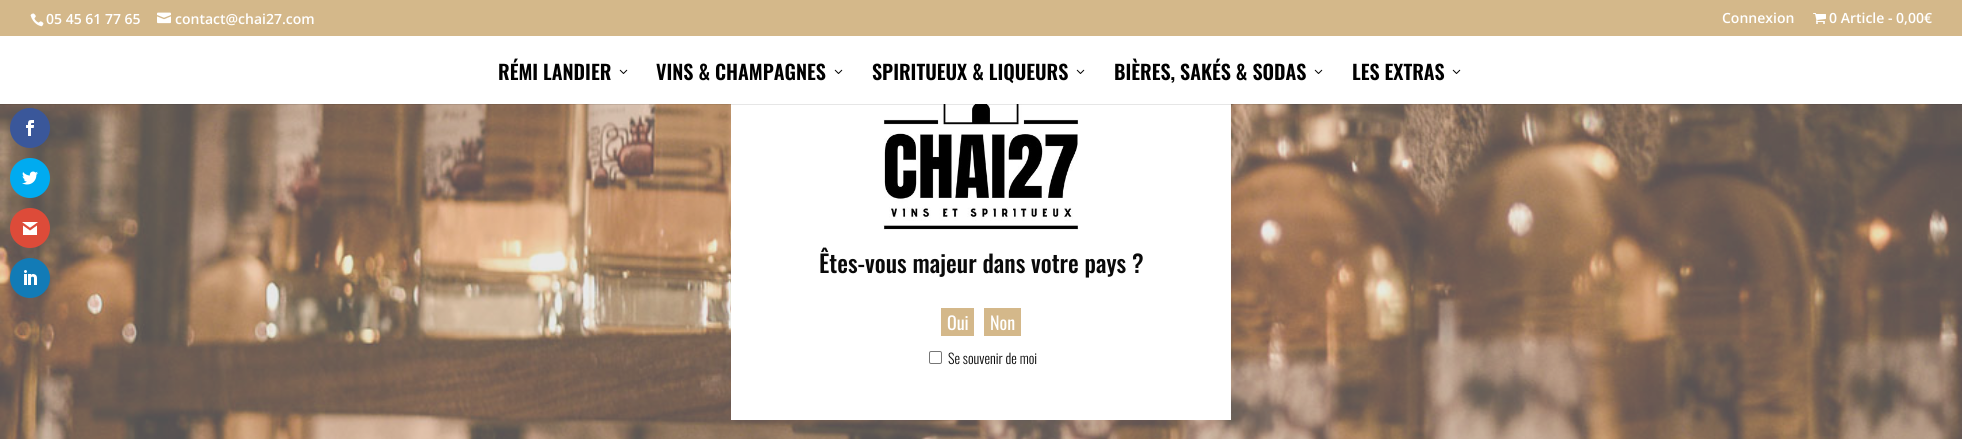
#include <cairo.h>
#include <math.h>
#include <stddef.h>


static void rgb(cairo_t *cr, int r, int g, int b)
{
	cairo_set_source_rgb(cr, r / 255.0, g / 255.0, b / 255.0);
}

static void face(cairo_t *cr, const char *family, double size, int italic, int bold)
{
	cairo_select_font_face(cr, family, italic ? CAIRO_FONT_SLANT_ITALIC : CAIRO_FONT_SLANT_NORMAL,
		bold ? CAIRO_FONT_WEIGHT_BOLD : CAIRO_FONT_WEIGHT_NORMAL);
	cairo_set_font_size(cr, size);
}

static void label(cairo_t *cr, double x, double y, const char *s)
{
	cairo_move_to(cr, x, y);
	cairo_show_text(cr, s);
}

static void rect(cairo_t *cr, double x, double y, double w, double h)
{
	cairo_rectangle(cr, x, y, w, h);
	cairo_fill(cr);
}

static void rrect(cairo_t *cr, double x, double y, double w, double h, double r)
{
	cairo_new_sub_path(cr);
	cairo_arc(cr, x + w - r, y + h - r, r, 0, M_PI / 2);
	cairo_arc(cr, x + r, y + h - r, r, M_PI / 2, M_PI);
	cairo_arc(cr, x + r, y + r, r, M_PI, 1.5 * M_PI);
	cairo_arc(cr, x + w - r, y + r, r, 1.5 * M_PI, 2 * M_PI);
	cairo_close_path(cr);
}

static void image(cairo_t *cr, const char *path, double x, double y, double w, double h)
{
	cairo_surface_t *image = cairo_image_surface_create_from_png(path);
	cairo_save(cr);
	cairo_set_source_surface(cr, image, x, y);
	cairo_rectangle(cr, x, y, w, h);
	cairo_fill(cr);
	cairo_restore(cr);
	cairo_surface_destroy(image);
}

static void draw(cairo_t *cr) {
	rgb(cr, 204, 204, 204);
	cairo_paint(cr);
	rgb(cr, 212, 184, 138);
	rect(cr, 0, 0, 1962, 36);
	image(cr, "image0.png", 30, 13, 14, 14);
	face(cr, "Open Sans SemiBold", 14, 0, 0);
	rgb(cr, 255, 255, 255);
	label(cr, 46, 24, "05 45 61 77 65");
	image(cr, "image1.png", 157, 12, 14, 12);
	label(cr, 175, 24, "contact@chai27.com");
	label(cr, 1722, 23, "Connexion");
	image(cr, "image2.png", 1813, 13, 13, 11);
	label(cr, 1829, 23, "0 Article - 0,00€");
	image(cr, "image8.png", 0, 104, 1962, 335);
	rect(cr, 731, 104, 500, 316);
	image(cr, "image9.png", 883, 104, 196, 126);
	cairo_set_source_rgba(cr, 0, 0, 0, 0.1);
	rect(cr, 0, 104, 1962, 1);
	rgb(cr, 255, 255, 255);
	rect(cr, 0, 36, 1962, 68);
	face(cr, "Oswald SemiBold", 20, 0, 0);
	rgb(cr, 0, 0, 0);
	label(cr, 498, 80, "RÉMI LANDIER");
	image(cr, "image3.png", 619, 69, 9, 5);
	label(cr, 656, 80, "VINS & CHAMPAGNES");
	image(cr, "image3.png", 834, 69, 9, 5);
	label(cr, 872, 80, "SPIRITUEUX & LIQUEURS");
	image(cr, "image3.png", 1076, 69, 9, 5);
	label(cr, 1114, 80, "BIÈRES, SAKÉS & SODAS");
	image(cr, "image3.png", 1314, 69, 9, 5);
	label(cr, 1352, 80, "LES EXTRAS");
	image(cr, "image3.png", 1452, 69, 9, 5);
	rgb(cr, 58, 87, 154);
	cairo_arc(cr, 30, 128, 20, 0, 2 * M_PI);
	cairo_fill(cr);
	image(cr, "image4.png", 26, 120, 8, 16);
	rgb(cr, 0, 171, 240);
	cairo_arc(cr, 30, 178, 20, 0, 2 * M_PI);
	cairo_fill(cr);
	image(cr, "image5.png", 22, 171, 16, 14);
	rgb(cr, 221, 75, 57);
	cairo_arc(cr, 30, 228, 20, 0, 2 * M_PI);
	cairo_fill(cr);
	image(cr, "image6.png", 22, 222, 16, 13);
	rgb(cr, 18, 123, 182);
	cairo_arc(cr, 30, 278, 20, 0, 2 * M_PI);
	cairo_fill(cr);
	image(cr, "image7.png", 24, 270, 13, 15);
	face(cr, "Oswald Medium", 24, 0, 0);
	rgb(cr, 10, 10, 10);
	label(cr, 819, 273, "Êtes-vous majeur dans votre pays ?");
	rgb(cr, 212, 184, 138);
	rect(cr, 941, 308, 33, 28);
	face(cr, "Oswald", 18, 0, 0);
	rgb(cr, 255, 255, 255);
	label(cr, 947, 330, "Oui");
	rgb(cr, 212, 184, 138);
	rect(cr, 984, 308, 37, 28);
	rgb(cr, 255, 255, 255);
	label(cr, 990, 330, "Non");
	rrect(cr, 929.5, 351.5, 12, 12, 1.5);
	rgb(cr, 118, 118, 118);
	cairo_set_line_width(cr, 1);
	cairo_stroke(cr);
	face(cr, "Oswald Light", 14, 0, 0);
	rgb(cr, 10, 10, 10);
	label(cr, 948, 364, "Se souvenir de moi");
}

int main(void) {
	cairo_surface_t *surface = cairo_image_surface_create(CAIRO_FORMAT_RGB24, 1962, 439);
	cairo_t *cr = cairo_create(surface);
	cairo_font_options_t *options = cairo_font_options_create();
	cairo_font_options_set_hint_metrics(options, CAIRO_HINT_METRICS_OFF);
	cairo_font_options_set_hint_style(options, CAIRO_HINT_STYLE_NONE);
	cairo_set_font_options(cr, options);
	cairo_set_miter_limit(cr, 4);
	draw(cr);
	cairo_surface_write_to_png(surface, "render.png");
	cairo_font_options_destroy(options);
	cairo_destroy(cr);
	cairo_surface_destroy(surface);
	return 0;
}
